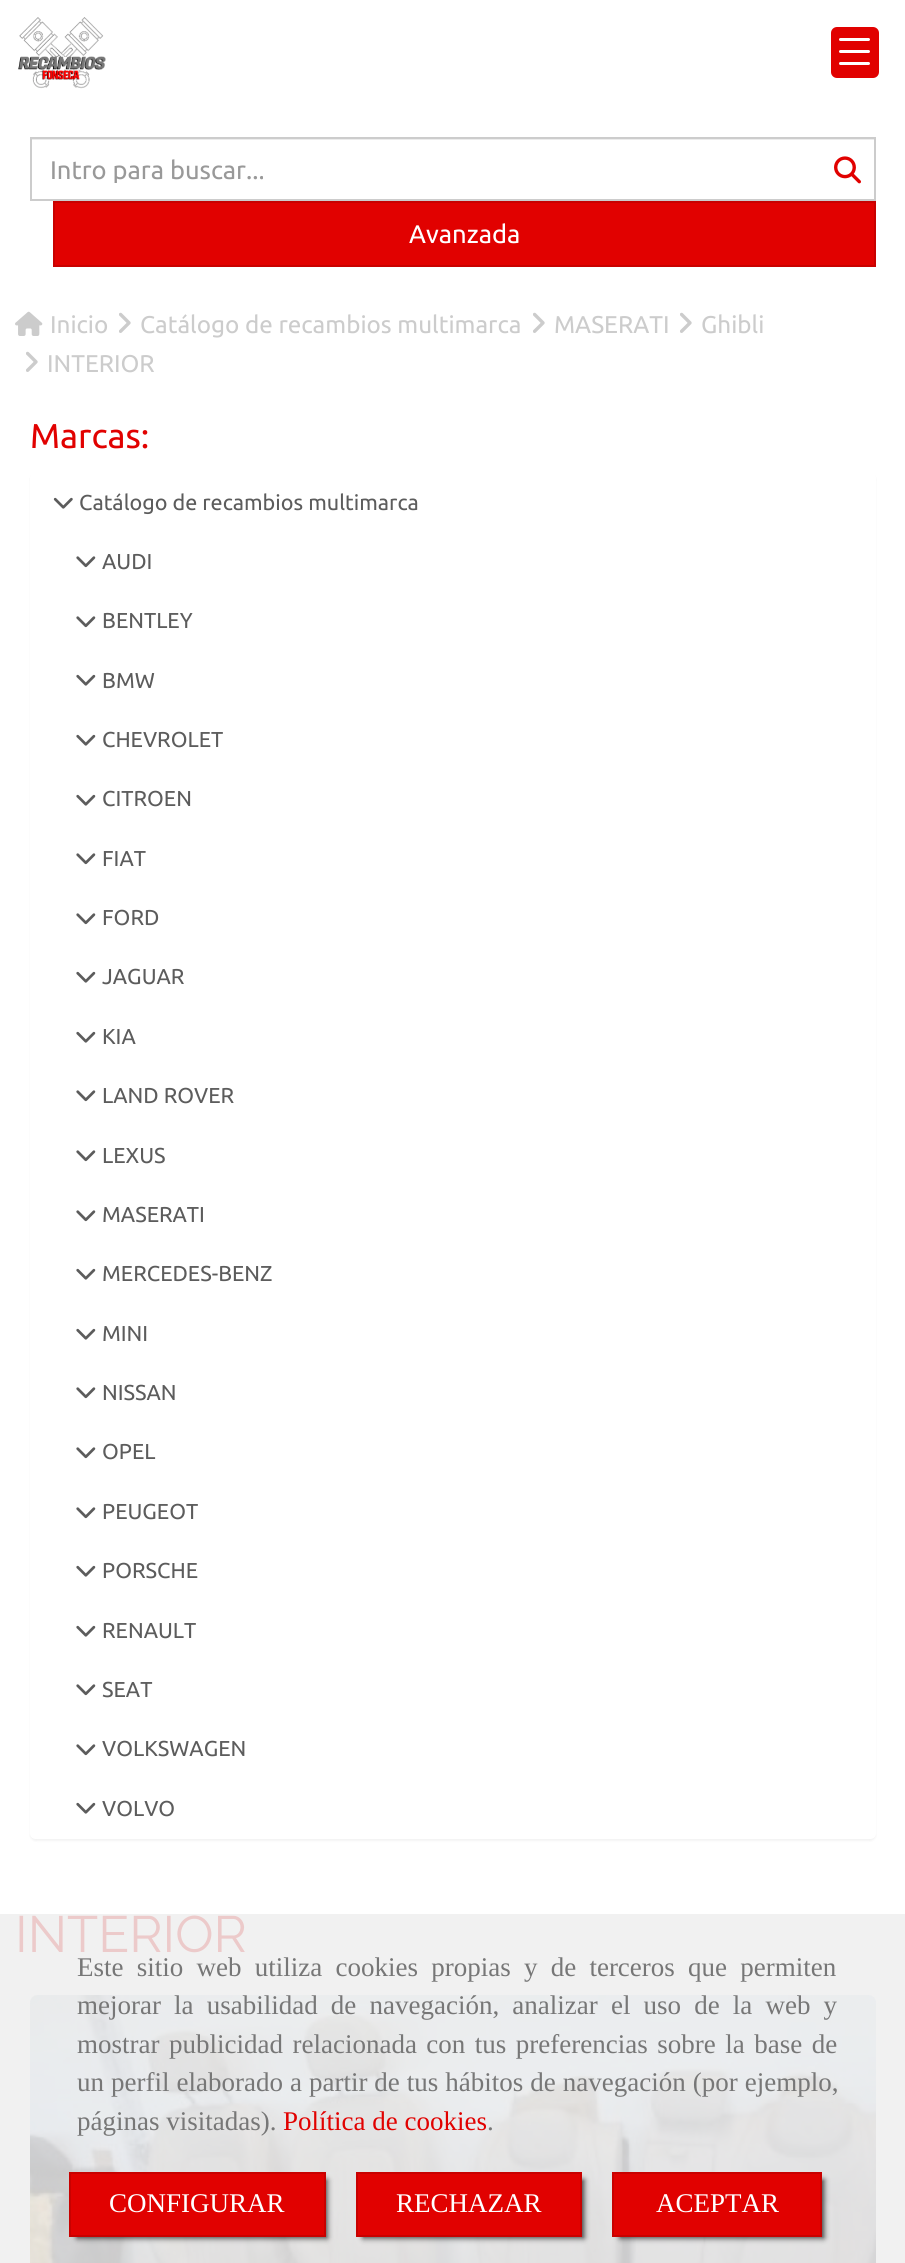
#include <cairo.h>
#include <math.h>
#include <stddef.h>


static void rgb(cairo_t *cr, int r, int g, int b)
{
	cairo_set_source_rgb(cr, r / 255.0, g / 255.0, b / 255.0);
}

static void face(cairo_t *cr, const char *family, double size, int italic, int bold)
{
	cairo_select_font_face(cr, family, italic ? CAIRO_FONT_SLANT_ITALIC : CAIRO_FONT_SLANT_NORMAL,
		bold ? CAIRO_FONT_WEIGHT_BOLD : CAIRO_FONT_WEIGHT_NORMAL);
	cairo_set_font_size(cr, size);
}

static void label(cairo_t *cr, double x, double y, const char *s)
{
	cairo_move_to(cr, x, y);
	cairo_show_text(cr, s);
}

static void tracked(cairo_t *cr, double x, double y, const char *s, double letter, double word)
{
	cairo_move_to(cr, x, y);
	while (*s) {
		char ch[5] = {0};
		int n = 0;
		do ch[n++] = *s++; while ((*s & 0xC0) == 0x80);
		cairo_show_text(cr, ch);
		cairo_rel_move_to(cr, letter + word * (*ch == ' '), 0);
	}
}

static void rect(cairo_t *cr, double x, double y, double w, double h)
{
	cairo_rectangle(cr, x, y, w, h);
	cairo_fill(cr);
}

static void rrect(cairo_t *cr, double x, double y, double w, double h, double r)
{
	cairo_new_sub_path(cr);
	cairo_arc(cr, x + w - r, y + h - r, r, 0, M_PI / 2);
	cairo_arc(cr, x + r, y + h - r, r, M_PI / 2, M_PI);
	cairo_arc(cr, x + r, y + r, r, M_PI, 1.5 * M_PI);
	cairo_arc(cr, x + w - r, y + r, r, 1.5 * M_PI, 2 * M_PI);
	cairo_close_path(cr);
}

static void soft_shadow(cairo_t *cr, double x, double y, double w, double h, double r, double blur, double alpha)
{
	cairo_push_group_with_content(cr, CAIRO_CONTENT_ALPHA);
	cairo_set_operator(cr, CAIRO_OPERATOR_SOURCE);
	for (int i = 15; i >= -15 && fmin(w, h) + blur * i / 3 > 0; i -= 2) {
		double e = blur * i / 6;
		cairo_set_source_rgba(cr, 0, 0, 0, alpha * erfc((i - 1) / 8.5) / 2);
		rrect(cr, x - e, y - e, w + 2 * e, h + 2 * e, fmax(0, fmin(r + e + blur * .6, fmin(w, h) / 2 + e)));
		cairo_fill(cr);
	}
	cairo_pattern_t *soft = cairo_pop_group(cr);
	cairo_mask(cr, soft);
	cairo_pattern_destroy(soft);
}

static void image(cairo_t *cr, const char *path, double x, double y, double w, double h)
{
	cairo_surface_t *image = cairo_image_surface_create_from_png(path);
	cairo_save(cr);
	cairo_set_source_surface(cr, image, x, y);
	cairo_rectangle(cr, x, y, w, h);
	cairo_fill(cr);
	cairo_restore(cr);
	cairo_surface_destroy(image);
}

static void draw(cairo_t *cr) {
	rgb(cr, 255, 255, 255);
	cairo_paint(cr);
	rgb(cr, 241, 241, 241);
	rect(cr, 0, 1914, 905, 349);
	image(cr, "image0.png", 18, 17, 88, 72);
	rgb(cr, 225, 1, 0);
	rrect(cr, 831, 27, 48, 51, 6);
	cairo_fill(cr);
	rgb(cr, 255, 255, 255);
	rrect(cr, 839, 50, 31, 3, 1.5);
	cairo_fill(cr);
	rrect(cr, 839, 38, 31, 3, 1.5);
	cairo_fill(cr);
	rrect(cr, 839, 62, 31, 3, 1.5);
	cairo_fill(cr);
	rgb(cr, 236, 236, 236);
	rect(cr, 32, 139, 843, 1);
	cairo_rectangle(cr, 31, 138, 844, 62);
	rgb(cr, 204, 204, 204);
	cairo_stroke(cr);
	cairo_save(cr);
	cairo_rectangle(cr, 50, 155, 774, 28);
	cairo_clip(cr);
	face(cr, "Ubuntu", 25.5, 0, 0);
	rgb(cr, 153, 153, 153);
	label(cr, 50, 179, "Intro para buscar...");
	cairo_restore(cr);
	image(cr, "image1.png", 834, 156, 27, 28);
	rgb(cr, 225, 1, 0);
	cairo_rectangle(cr, 54, 202, 821, 64);
	cairo_fill_preserve(cr);
	rgb(cr, 200, 1, 0);
	cairo_stroke(cr);
	face(cr, "Ubuntu", 25.5, 0, 0);
	rgb(cr, 255, 255, 255);
	label(cr, 409, 243, "Avanzada");
	image(cr, "image2.png", 15, 311, 28, 25);
	face(cr, "Ubuntu", 24.25, 0, 0);
	rgb(cr, 204, 204, 204);
	label(cr, 50, 333, "Inicio");
	image(cr, "image3.png", 119, 312, 12, 21);
	label(cr, 140, 333, "Catálogo de recambios multimarca");
	image(cr, "image3.png", 533, 312, 12, 21);
	label(cr, 554, 333, "MASERATI");
	image(cr, "image3.png", 680, 312, 12, 21);
	label(cr, 701, 333, "Ghibli");
	image(cr, "image3.png", 26, 351, 12, 21);
	label(cr, 47, 372, "INTERIOR");
	face(cr, "Ubuntu", 34.5, 0, 0);
	rgb(cr, 225, 1, 0);
	label(cr, 30, 448, "Marcas:");
	cairo_save(cr);
	cairo_set_fill_rule(cr, CAIRO_FILL_RULE_EVEN_ODD);
	cairo_new_path(cr);
	cairo_move_to(cr, 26, 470);
	cairo_line_to(cr, 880, 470);
	cairo_line_to(cr, 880, 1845);
	cairo_line_to(cr, 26, 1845);
	cairo_close_path(cr);
	cairo_move_to(cr, 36, 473);
	cairo_line_to(cr, 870, 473);
	cairo_curve_to(cr, 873.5, 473, 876, 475.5, 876, 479);
	cairo_line_to(cr, 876, 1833);
	cairo_curve_to(cr, 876, 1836.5, 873.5, 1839, 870, 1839);
	cairo_line_to(cr, 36, 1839);
	cairo_curve_to(cr, 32.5, 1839, 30, 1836.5, 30, 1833);
	cairo_line_to(cr, 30, 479);
	cairo_curve_to(cr, 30, 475.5, 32.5, 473, 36, 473);
	cairo_close_path(cr);
	cairo_clip(cr);
	rgb(cr, 0, 0, 0);
	soft_shadow(cr, 30, 474, 846, 1367, 6, 1, 0.05);
	cairo_restore(cr);
	image(cr, "image4.png", 53, 497, 20, 12);
	face(cr, "Ubuntu", 21.6, 0, 0);
	rgb(cr, 92, 92, 92);
	label(cr, 79, 510, "Catálogo de recambios multimarca");
	image(cr, "image5.png", 76, 556, 20, 12);
	label(cr, 102, 569, "AUDI");
	image(cr, "image5.png", 76, 616, 20, 12);
	label(cr, 102, 628, "BENTLEY");
	image(cr, "image6.png", 76, 674, 20, 12);
	label(cr, 102, 688, "BMW");
	image(cr, "image6.png", 76, 734, 20, 12);
	label(cr, 102, 747, "CHEVROLET");
	image(cr, "image6.png", 76, 794, 20, 12);
	label(cr, 102, 806, "CITROEN");
	image(cr, "image5.png", 76, 853, 20, 12);
	label(cr, 102, 866, "FIAT");
	image(cr, "image5.png", 76, 913, 20, 12);
	label(cr, 102, 925, "FORD");
	image(cr, "image6.png", 76, 971, 20, 12);
	label(cr, 102, 984, "JAGUAR");
	image(cr, "image6.png", 76, 1031, 20, 12);
	label(cr, 102, 1044, "KIA");
	image(cr, "image5.png", 76, 1090, 20, 12);
	label(cr, 102, 1103, "LAND ROVER");
	image(cr, "image5.png", 76, 1150, 20, 12);
	label(cr, 102, 1163, "LEXUS");
	image(cr, "image5.png", 76, 1210, 20, 12);
	label(cr, 102, 1222, "MASERATI");
	image(cr, "image6.png", 76, 1268, 20, 12);
	label(cr, 102, 1281, "MERCEDES-BENZ");
	image(cr, "image6.png", 76, 1328, 20, 12);
	label(cr, 102, 1341, "MINI");
	image(cr, "image5.png", 76, 1387, 20, 12);
	label(cr, 102, 1400, "NISSAN");
	image(cr, "image5.png", 76, 1447, 20, 12);
	label(cr, 102, 1459, "OPEL");
	image(cr, "image5.png", 76, 1507, 20, 12);
	label(cr, 102, 1519, "PEUGEOT");
	image(cr, "image6.png", 76, 1565, 20, 12);
	label(cr, 102, 1578, "PORSCHE");
	image(cr, "image6.png", 76, 1625, 20, 12);
	label(cr, 102, 1638, "RENAULT");
	image(cr, "image5.png", 76, 1684, 20, 12);
	label(cr, 102, 1697, "SEAT");
	image(cr, "image5.png", 76, 1744, 20, 12);
	label(cr, 102, 1756, "VOLKSWAGEN");
	image(cr, "image6.png", 76, 1802, 20, 12);
	label(cr, 102, 1816, "VOLVO");
	face(cr, "Raleway Thin", 51, 0, 0);
	rgb(cr, 236, 202, 202);
	label(cr, 15, 1952, "INTERIOR");
	image(cr, "image7.png", 30, 1995, 846, 268);
	face(cr, "Liberation Serif", 27, 0, 0);
	rgb(cr, 119, 119, 119);
	tracked(cr, 77, 1976, "Este sitio web utiliza cookies propias y de terceros que permiten", 0, 6.5);
	tracked(cr, 77, 2014, "mejorar la usabilidad de navegación, analizar el uso de la web y", 0, 6.4);
	tracked(cr, 77, 2053, "mostrar publicidad relacionada con tus preferencias sobre la base de", 0, 2.75);
	tracked(cr, 77, 2091, "un perfil elaborado a partir de tus hábitos de navegación (por ejemplo,", 0, 0.25);
	label(cr, 77, 2130, "páginas visitadas).");
	rgb(cr, 225, 1, 0);
	label(cr, 283, 2130, "Política de cookies");
	rgb(cr, 119, 119, 119);
	label(cr, 487, 2130, ".");
	rgb(cr, 0, 0, 0);
	soft_shadow(cr, 77, 2180, 250, 58, 0, 3, 0.75);
	rgb(cr, 225, 1, 0);
	cairo_rectangle(cr, 70, 2173, 255, 63);
	cairo_fill_preserve(cr);
	rgb(cr, 200, 1, 0);
	cairo_stroke(cr);
	rgb(cr, 255, 255, 255);
	label(cr, 109, 2212, "CONFIGURAR");
	rgb(cr, 0, 0, 0);
	soft_shadow(cr, 363, 2180, 221, 58, 0, 3, 0.75);
	rgb(cr, 225, 1, 0);
	cairo_rectangle(cr, 357, 2173, 224, 63);
	cairo_fill_preserve(cr);
	rgb(cr, 200, 1, 0);
	cairo_stroke(cr);
	rgb(cr, 255, 255, 255);
	label(cr, 396, 2212, "RECHAZAR");
	rgb(cr, 0, 0, 0);
	soft_shadow(cr, 620, 2180, 204, 58, 0, 3, 0.75);
	rgb(cr, 225, 1, 0);
	cairo_rectangle(cr, 613, 2173, 208, 63);
	cairo_fill_preserve(cr);
	rgb(cr, 200, 1, 0);
	cairo_stroke(cr);
	rgb(cr, 255, 255, 255);
	label(cr, 656, 2212, "ACEPTAR");
}

int main(void) {
	cairo_surface_t *surface = cairo_image_surface_create(CAIRO_FORMAT_RGB24, 905, 2263);
	cairo_t *cr = cairo_create(surface);
	cairo_font_options_t *options = cairo_font_options_create();
	cairo_font_options_set_hint_metrics(options, CAIRO_HINT_METRICS_OFF);
	cairo_font_options_set_hint_style(options, CAIRO_HINT_STYLE_NONE);
	cairo_set_font_options(cr, options);
	cairo_set_miter_limit(cr, 4);
	draw(cr);
	cairo_surface_write_to_png(surface, "render.png");
	cairo_font_options_destroy(options);
	cairo_destroy(cr);
	cairo_surface_destroy(surface);
	return 0;
}
